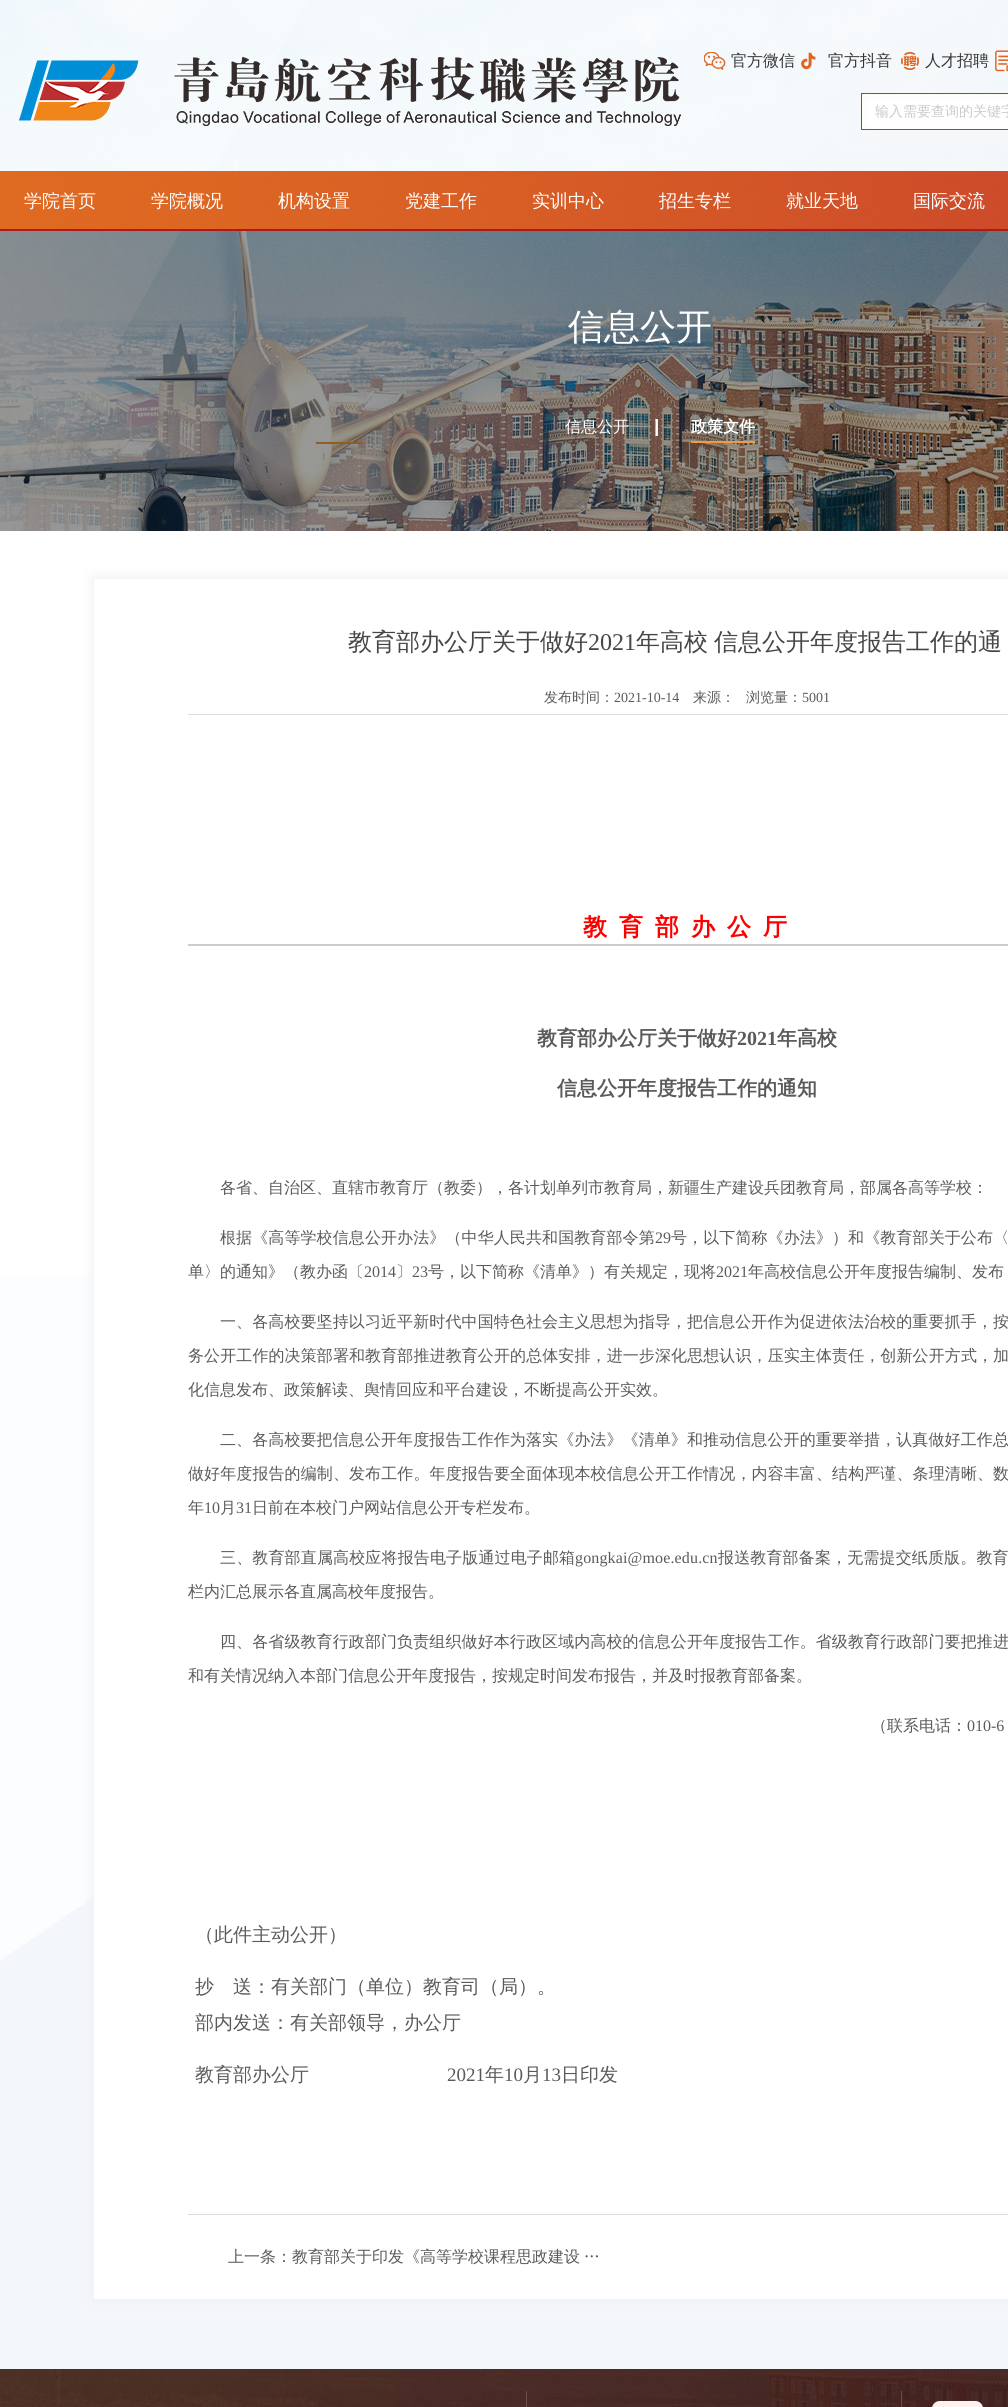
#include <cairo.h>
#include <math.h>
#include <stddef.h>


static void rgb(cairo_t *cr, int r, int g, int b)
{
	cairo_set_source_rgb(cr, r / 255.0, g / 255.0, b / 255.0);
}

static void face(cairo_t *cr, const char *family, double size, int italic, int bold)
{
	cairo_select_font_face(cr, family, italic ? CAIRO_FONT_SLANT_ITALIC : CAIRO_FONT_SLANT_NORMAL,
		bold ? CAIRO_FONT_WEIGHT_BOLD : CAIRO_FONT_WEIGHT_NORMAL);
	cairo_set_font_size(cr, size);
}

static void label(cairo_t *cr, double x, double y, const char *s)
{
	cairo_move_to(cr, x, y);
	cairo_show_text(cr, s);
}

static void tracked(cairo_t *cr, double x, double y, const char *s, double letter, double word)
{
	cairo_move_to(cr, x, y);
	while (*s) {
		char ch[5] = {0};
		int n = 0;
		do ch[n++] = *s++; while ((*s & 0xC0) == 0x80);
		cairo_show_text(cr, ch);
		cairo_rel_move_to(cr, letter + word * (*ch == ' '), 0);
	}
}

static void rect(cairo_t *cr, double x, double y, double w, double h)
{
	cairo_rectangle(cr, x, y, w, h);
	cairo_fill(cr);
}

static void rrect(cairo_t *cr, double x, double y, double w, double h, double r)
{
	cairo_new_sub_path(cr);
	cairo_arc(cr, x + w - r, y + h - r, r, 0, M_PI / 2);
	cairo_arc(cr, x + r, y + h - r, r, M_PI / 2, M_PI);
	cairo_arc(cr, x + r, y + r, r, M_PI, 1.5 * M_PI);
	cairo_arc(cr, x + w - r, y + r, r, 1.5 * M_PI, 2 * M_PI);
	cairo_close_path(cr);
}

static void soft_shadow(cairo_t *cr, double x, double y, double w, double h, double r, double blur, double alpha)
{
	cairo_push_group_with_content(cr, CAIRO_CONTENT_ALPHA);
	cairo_set_operator(cr, CAIRO_OPERATOR_SOURCE);
	for (int i = 15; i >= -15 && fmin(w, h) + blur * i / 3 > 0; i -= 2) {
		double e = blur * i / 6;
		cairo_set_source_rgba(cr, 0, 0, 0, alpha * erfc((i - 1) / 8.5) / 2);
		rrect(cr, x - e, y - e, w + 2 * e, h + 2 * e, fmax(0, fmin(r + e + blur * .6, fmin(w, h) / 2 + e)));
		cairo_fill(cr);
	}
	cairo_pattern_t *soft = cairo_pop_group(cr);
	cairo_mask(cr, soft);
	cairo_pattern_destroy(soft);
}

static void image(cairo_t *cr, const char *path, double x, double y, double w, double h)
{
	cairo_surface_t *image = cairo_image_surface_create_from_png(path);
	cairo_save(cr);
	cairo_set_source_surface(cr, image, x, y);
	cairo_rectangle(cr, x, y, w, h);
	cairo_fill(cr);
	cairo_restore(cr);
	cairo_surface_destroy(image);
}

static void draw(cairo_t *cr) {
	rgb(cr, 255, 255, 255);
	cairo_paint(cr);
	image(cr, "image7.png", 0, 0, 1008, 531);
	cairo_set_source_rgba(cr, 1, 1, 1, 0.9);
	rect(cr, 0, 0, 1008, 171);
	image(cr, "image0.png", 19, 57, 662, 69);
	image(cr, "image1.png", 704, 52, 22, 18);
	face(cr, "WenQuanYi Zen Hei Medium", 16, 0, 0);
	rgb(cr, 53, 53, 53);
	label(cr, 731, 66, "官方微信");
	image(cr, "image2.png", 801, 52, 15, 18);
	label(cr, 828, 66, "官方抖音");
	image(cr, "image3.png", 901, 52, 18, 18);
	label(cr, 925, 66, "人才招聘");
	image(cr, "image4.png", 995, 50, 13, 22);
	image(cr, "image5.png", 861, 93, 147, 37);
	face(cr, "WenQuanYi Zen Hei Medium", 14, 0, 0);
	rgb(cr, 202, 202, 202);
	label(cr, 875, 116, "输入需要查询的关键字");
	image(cr, "image6.png", 0, 171, 1008, 60);
	face(cr, "WenQuanYi Zen Hei Medium", 18, 0, 0);
	rgb(cr, 255, 255, 255);
	label(cr, 24, 207, "学院首页");
	label(cr, 151, 207, "学院概况");
	label(cr, 278, 207, "机构设置");
	label(cr, 405, 207, "党建工作");
	label(cr, 532, 207, "实训中心");
	label(cr, 659, 207, "招生专栏");
	label(cr, 786, 207, "就业天地");
	label(cr, 913, 207, "国际交流");
	cairo_set_source_rgba(cr, 0, 0, 0, 0.4);
	rect(cr, 0, 231, 1008, 300);
	face(cr, "WenQuanYi Zen Hei Medium", 36, 0, 0);
	rgb(cr, 255, 255, 255);
	label(cr, 568, 339, "信息公开");
	image(cr, "image8.png", 655, 419, 3, 17);
	face(cr, "WenQuanYi Zen Hei Medium", 16, 0, 0);
	label(cr, 565, 432, "信息公开");
	rgb(cr, 240, 155, 68);
	rect(cr, 691, 441, 64, 2);
	face(cr, "WenQuanYi Zen Hei", 16, 0, 1);
	rgb(cr, 255, 255, 255);
	label(cr, 691, 432, "政策文件");
	image(cr, "image9.png", 0, 1275, 1008, 1094);
	rgb(cr, 238, 241, 245);
	soft_shadow(cr, 92, 577, 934, 1724, 0, 6, 1);
	rgb(cr, 255, 255, 255);
	rect(cr, 94, 579, 914, 1720);
	rgb(cr, 221, 221, 221);
	rect(cr, 188, 714, 820, 1);
	face(cr, "WenQuanYi Zen Hei Medium", 24, 0, 0);
	rgb(cr, 70, 70, 70);
	label(cr, 348, 650, "教育部办公厅关于做好");
	face(cr, "Liberation Serif", 24, 0, 0);
	label(cr, 588, 650, "2021");
	face(cr, "WenQuanYi Zen Hei Medium", 24, 0, 0);
	label(cr, 636, 650, "年高校");
	label(cr, 714, 650, "信息公开年度报告工作的通");
	face(cr, "WenQuanYi Zen Hei Medium", 14, 0, 0);
	rgb(cr, 90, 90, 90);
	label(cr, 544, 702, "发布时间：");
	face(cr, "Liberation Serif", 14, 0, 0);
	label(cr, 614, 702, "2021-10-14");
	face(cr, "WenQuanYi Zen Hei Medium", 14, 0, 0);
	label(cr, 693, 702, "来源：");
	label(cr, 746, 702, "浏览量：");
	face(cr, "Liberation Serif", 14, 0, 0);
	label(cr, 802, 702, "5001");
	rgb(cr, 204, 204, 204);
	rect(cr, 188, 944, 820, 2);
	face(cr, "WenQuanYi Zen Hei", 24, 0, 1);
	rgb(cr, 255, 0, 0);
	label(cr, 583, 935, "教");
	label(cr, 619, 935, "育");
	label(cr, 655, 935, "部");
	label(cr, 691, 935, "办");
	label(cr, 727, 935, "公");
	label(cr, 763, 935, "厅");
	face(cr, "WenQuanYi Zen Hei", 20, 0, 1);
	rgb(cr, 90, 90, 90);
	label(cr, 537, 1045, "教育部办公厅关于做好");
	face(cr, "Liberation Serif", 20, 0, 1);
	label(cr, 737, 1045, "2021");
	face(cr, "WenQuanYi Zen Hei", 20, 0, 1);
	label(cr, 777, 1045, "年高校");
	label(cr, 557, 1095, "信息公开年度报告工作的通知");
	face(cr, "WenQuanYi Zen Hei Medium", 16, 0, 0);
	label(cr, 220, 1193, "各省、自治区、直辖市教育厅（教委），各计划单列市教育局，新疆生产建设兵团教育局，部属各高等学校：");
	tracked(cr, 220, 1243, "根据《高等学校信息公开办法》（中华人民共和国教育部令第", 0.1, 0);
	face(cr, "Liberation Serif", 16, 0, 0);
	tracked(cr, 655, 1243, "29", 0.1, 0);
	face(cr, "WenQuanYi Zen Hei Medium", 16, 0, 0);
	tracked(cr, 671, 1243, "号，以下简称《办法》）和《教育部关于公布〈", 0.1, 0);
	label(cr, 188, 1277, "单〉的通知》（教办函〔");
	face(cr, "Liberation Serif", 16, 0, 0);
	label(cr, 364, 1277, "2014");
	face(cr, "WenQuanYi Zen Hei Medium", 16, 0, 0);
	label(cr, 396, 1277, "〕");
	face(cr, "Liberation Serif", 16, 0, 0);
	label(cr, 412, 1277, "23");
	face(cr, "WenQuanYi Zen Hei Medium", 16, 0, 0);
	label(cr, 428, 1277, "号，以下简称《清单》）有关规定，现将");
	face(cr, "Liberation Serif", 16, 0, 0);
	label(cr, 716, 1277, "2021");
	face(cr, "WenQuanYi Zen Hei Medium", 16, 0, 0);
	label(cr, 748, 1277, "年高校信息公开年度报告编制、发布");
	tracked(cr, 220, 1327, "一、各高校要坚持以习近平新时代中国特色社会主义思想为指导，把信息公开作为促进依法治校的重要抓手，按", 0.1, 0);
	tracked(cr, 188, 1361, "务公开工作的决策部署和教育部推进教育公开的总体安排，进一步深化思想认识，压实主体责任，创新公开方式，加", 0.1, 0);
	label(cr, 188, 1395, "化信息发布、政策解读、舆情回应和平台建设，不断提高公开实效。");
	tracked(cr, 220, 1445, "二、各高校要把信息公开年度报告工作作为落实《办法》《清单》和推动信息公开的重要举措，认真做好工作总", 0.1, 0);
	tracked(cr, 188, 1479, "做好年度报告的编制、发布工作。年度报告要全面体现本校信息公开工作情况，内容丰富、结构严谨、条理清晰、数", 0.1, 0);
	label(cr, 188, 1513, "年");
	face(cr, "Liberation Serif", 16, 0, 0);
	label(cr, 204, 1513, "10");
	face(cr, "WenQuanYi Zen Hei Medium", 16, 0, 0);
	label(cr, 220, 1513, "月");
	face(cr, "Liberation Serif", 16, 0, 0);
	label(cr, 236, 1513, "31");
	face(cr, "WenQuanYi Zen Hei Medium", 16, 0, 0);
	label(cr, 252, 1513, "日前在本校门户网站信息公开专栏发布。");
	tracked(cr, 220, 1563, "三、教育部直属高校应将报告电子版通过电子邮箱", 0.15, 0);
	face(cr, "Liberation Serif", 16, 0, 0);
	tracked(cr, 575, 1563, "gongkai@moe.edu.cn", 0.15, 0);
	face(cr, "WenQuanYi Zen Hei Medium", 16, 0, 0);
	tracked(cr, 718, 1563, "报送教育部备案，无需提交纸质版。教育", 0.15, 0);
	label(cr, 188, 1597, "栏内汇总展示各直属高校年度报告。");
	tracked(cr, 220, 1647, "四、各省级教育行政部门负责组织做好本行政区域内高校的信息公开年度报告工作。省级教育行政部门要把推进", 0.1, 0);
	label(cr, 188, 1681, "和有关情况纳入本部门信息公开年度报告，按规定时间发布报告，并及时报教育部备案。");
	label(cr, 871, 1731, "（联系电话：");
	face(cr, "Liberation Serif", 16, 0, 0);
	label(cr, 967, 1731, "010-6");
	face(cr, "WenQuanYi Zen Hei Medium", 19, 0, 0);
	label(cr, 195, 1941, "（此件主动公开）");
	label(cr, 195, 1993, "抄");
	label(cr, 233, 1993, "送：有关部门（单位）教育司（局）。");
	label(cr, 195, 2029, "部内发送：有关部领导，办公厅");
	label(cr, 195, 2081, "教育部办公厅");
	face(cr, "Liberation Serif", 19, 0, 0);
	label(cr, 447, 2081, "2021");
	face(cr, "WenQuanYi Zen Hei Medium", 19, 0, 0);
	label(cr, 485, 2081, "年");
	face(cr, "Liberation Serif", 19, 0, 0);
	label(cr, 504, 2081, "10");
	face(cr, "WenQuanYi Zen Hei Medium", 19, 0, 0);
	label(cr, 523, 2081, "月");
	face(cr, "Liberation Serif", 19, 0, 0);
	label(cr, 542, 2081, "13");
	face(cr, "WenQuanYi Zen Hei Medium", 19, 0, 0);
	label(cr, 561, 2081, "日印发");
	rgb(cr, 221, 221, 221);
	rect(cr, 188, 2214, 820, 1);
	face(cr, "WenQuanYi Zen Hei Medium", 16, 0, 0);
	rgb(cr, 90, 90, 90);
	label(cr, 228, 2262, "上一条：");
	tracked(cr, 292, 2262, "教育部关于印发《高等学校课程思政建设 …", 0, -1);
	image(cr, "image10.png", 0, 2369, 1008, 38);
	cairo_set_source_rgba(cr, 1, 1, 1, 0.18);
	rect(cr, 526, 2391, 1, 16);
	rgb(cr, 103, 76, 72);
	rect(cr, 901, 2391, 1, 16);
	image(cr, "image11.png", 932, 2401, 51, 6);
}

int main(void) {
	cairo_surface_t *surface = cairo_image_surface_create(CAIRO_FORMAT_RGB24, 1008, 2407);
	cairo_t *cr = cairo_create(surface);
	cairo_font_options_t *options = cairo_font_options_create();
	cairo_font_options_set_hint_metrics(options, CAIRO_HINT_METRICS_OFF);
	cairo_font_options_set_hint_style(options, CAIRO_HINT_STYLE_NONE);
	cairo_set_font_options(cr, options);
	cairo_set_miter_limit(cr, 4);
	draw(cr);
	cairo_surface_write_to_png(surface, "render.png");
	cairo_font_options_destroy(options);
	cairo_destroy(cr);
	cairo_surface_destroy(surface);
	return 0;
}
